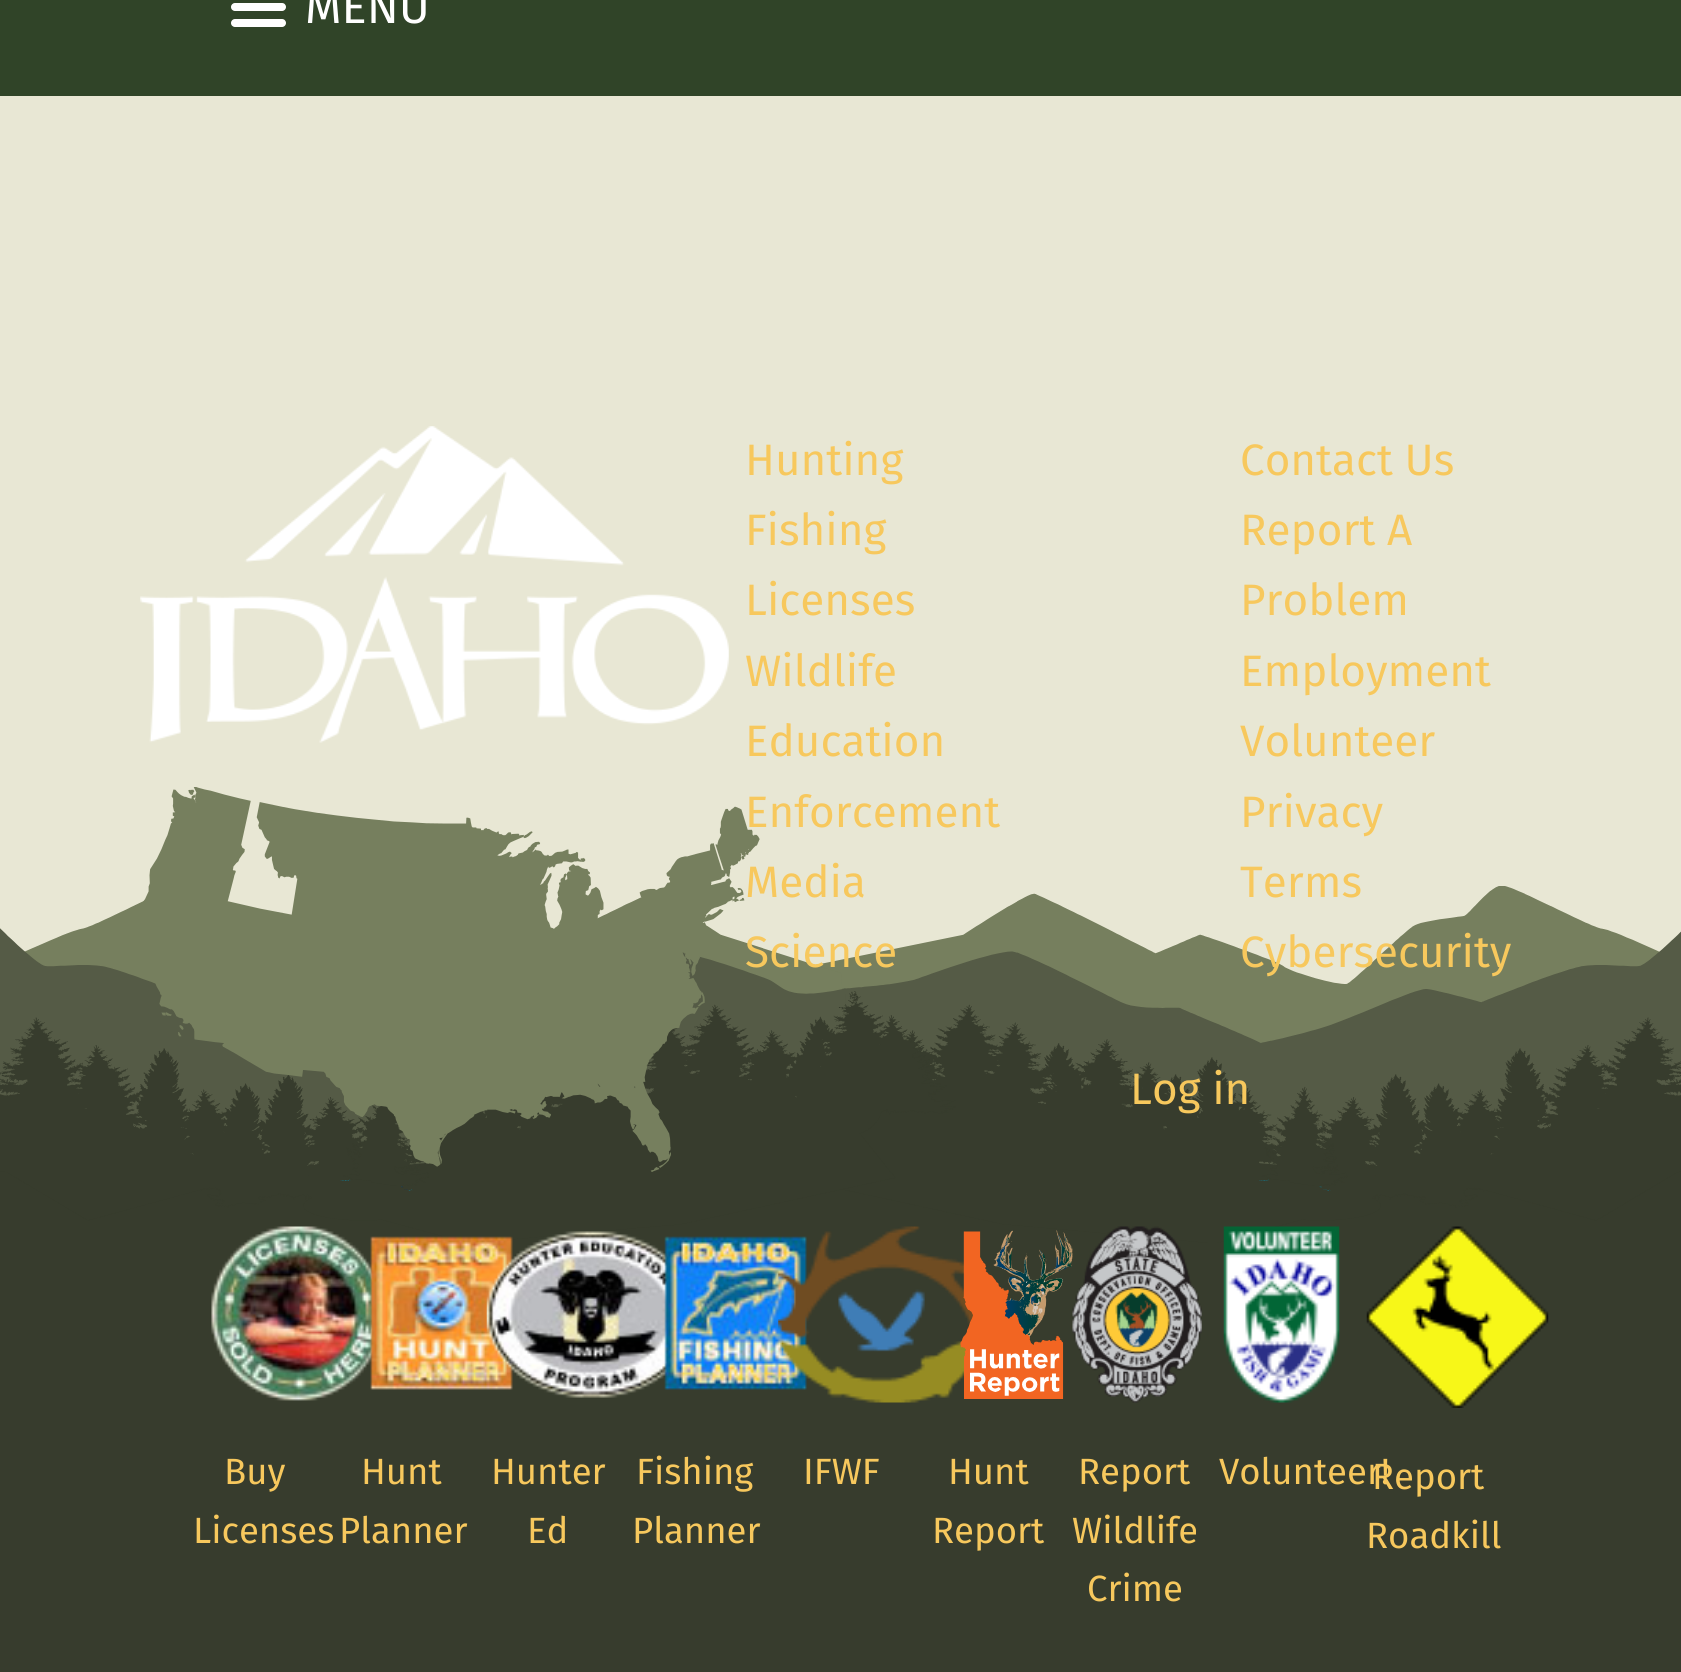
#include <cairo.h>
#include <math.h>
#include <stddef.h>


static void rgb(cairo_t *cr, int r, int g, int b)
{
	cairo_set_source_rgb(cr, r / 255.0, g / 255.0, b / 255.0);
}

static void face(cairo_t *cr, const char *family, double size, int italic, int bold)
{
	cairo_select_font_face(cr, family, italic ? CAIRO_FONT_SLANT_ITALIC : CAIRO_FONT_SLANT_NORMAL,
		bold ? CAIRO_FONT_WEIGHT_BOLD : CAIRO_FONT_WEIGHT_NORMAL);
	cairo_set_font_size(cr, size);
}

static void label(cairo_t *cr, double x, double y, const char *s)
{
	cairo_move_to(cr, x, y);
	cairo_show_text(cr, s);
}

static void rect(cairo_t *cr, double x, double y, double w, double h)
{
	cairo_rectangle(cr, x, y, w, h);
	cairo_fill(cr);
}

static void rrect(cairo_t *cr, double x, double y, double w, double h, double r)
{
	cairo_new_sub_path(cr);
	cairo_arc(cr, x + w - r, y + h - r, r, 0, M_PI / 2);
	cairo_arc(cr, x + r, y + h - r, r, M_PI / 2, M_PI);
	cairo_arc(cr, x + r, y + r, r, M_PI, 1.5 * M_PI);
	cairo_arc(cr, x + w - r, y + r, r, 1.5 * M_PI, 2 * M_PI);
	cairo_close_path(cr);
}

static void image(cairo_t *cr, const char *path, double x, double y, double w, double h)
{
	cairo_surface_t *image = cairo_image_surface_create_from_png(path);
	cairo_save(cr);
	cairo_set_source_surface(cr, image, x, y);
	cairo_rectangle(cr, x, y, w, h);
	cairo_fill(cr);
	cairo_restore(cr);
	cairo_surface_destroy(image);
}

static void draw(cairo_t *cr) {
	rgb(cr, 232, 231, 212);
	cairo_paint(cr);
	rgb(cr, 48, 68, 40);
	rect(cr, 0, 0, 1681, 96);
	rgb(cr, 255, 255, 255);
	rrect(cr, 231, 3, 55, 8, 4);
	cairo_fill(cr);
	face(cr, "Fira Sans", 47, 0, 0);
	label(cr, 305, 23, "MENU");
	rrect(cr, 231, 19, 55, 8, 4);
	cairo_fill(cr);
	image(cr, "image0.png", 0, 886, 1681, 786);
	image(cr, "image1.png", 140, 426, 589, 317);
	image(cr, "image2.png", 143, 787, 617, 385);
	face(cr, "Fira Sans", 44, 0, 0);
	rgb(cr, 247, 200, 93);
	label(cr, 745, 475, "Hunting");
	label(cr, 745, 545, "Fishing");
	label(cr, 745, 615, "Licenses");
	label(cr, 745, 686, "Wildlife");
	label(cr, 745, 756, "Education");
	label(cr, 745, 827, "Enforcement");
	label(cr, 745, 897, "Media");
	label(cr, 745, 967, "Science");
	label(cr, 1240, 475, "Contact Us");
	label(cr, 1240, 545, "Report A");
	label(cr, 1240, 615, "Problem");
	label(cr, 1240, 686, "Employment");
	label(cr, 1240, 756, "Volunteer");
	label(cr, 1240, 827, "Privacy");
	label(cr, 1240, 897, "Terms");
	label(cr, 1240, 967, "Cybersecurity");
	label(cr, 1130, 1104, "Log in");
	image(cr, "image3.png", 211, 1226, 162, 175);
	face(cr, "Fira Sans", 36.5, 0, 0);
	label(cr, 224, 1484, "Buy");
	label(cr, 193, 1543, "Licenses");
	image(cr, "image4.png", 370, 1236, 143, 154);
	label(cr, 361, 1484, "Hunt");
	label(cr, 339, 1543, "Planner");
	image(cr, "image5.png", 486, 1231, 181, 167);
	label(cr, 491, 1484, "Hunter");
	label(cr, 527, 1543, "Ed");
	image(cr, "image6.png", 664, 1236, 143, 154);
	label(cr, 636, 1484, "Fishing");
	label(cr, 632, 1543, "Planner");
	image(cr, "image7.png", 778, 1226, 216, 177);
	label(cr, 803, 1484, "IFWF");
	image(cr, "image8.png", 960, 1230, 113, 169);
	label(cr, 948, 1484, "Hunt");
	label(cr, 932, 1543, "Report");
	image(cr, "image9.png", 1072, 1226, 130, 177);
	label(cr, 1078, 1484, "Report");
	label(cr, 1072, 1543, "Wildlife");
	label(cr, 1087, 1601, "Crime");
	image(cr, "image10.png", 1223, 1226, 117, 177);
	label(cr, 1219, 1484, "Volunteer!");
	image(cr, "image11.png", 1366, 1226, 183, 182);
	label(cr, 1372, 1489, "Report");
	label(cr, 1366, 1548, "Roadkill");
}

int main(void) {
	cairo_surface_t *surface = cairo_image_surface_create(CAIRO_FORMAT_RGB24, 1681, 1672);
	cairo_t *cr = cairo_create(surface);
	cairo_font_options_t *options = cairo_font_options_create();
	cairo_font_options_set_hint_metrics(options, CAIRO_HINT_METRICS_OFF);
	cairo_font_options_set_hint_style(options, CAIRO_HINT_STYLE_NONE);
	cairo_set_font_options(cr, options);
	cairo_set_miter_limit(cr, 4);
	draw(cr);
	cairo_surface_write_to_png(surface, "render.png");
	cairo_font_options_destroy(options);
	cairo_destroy(cr);
	cairo_surface_destroy(surface);
	return 0;
}
